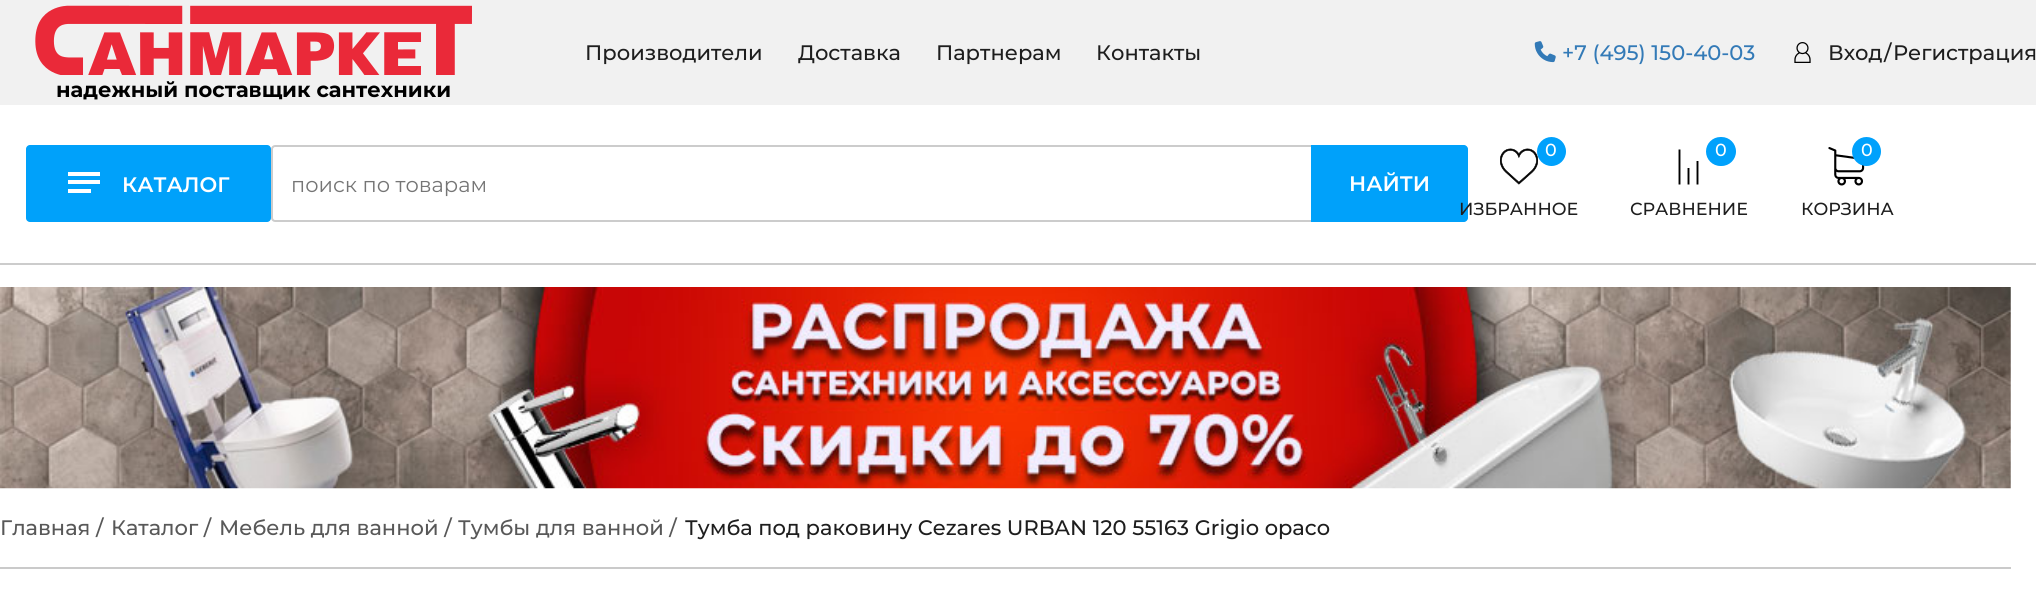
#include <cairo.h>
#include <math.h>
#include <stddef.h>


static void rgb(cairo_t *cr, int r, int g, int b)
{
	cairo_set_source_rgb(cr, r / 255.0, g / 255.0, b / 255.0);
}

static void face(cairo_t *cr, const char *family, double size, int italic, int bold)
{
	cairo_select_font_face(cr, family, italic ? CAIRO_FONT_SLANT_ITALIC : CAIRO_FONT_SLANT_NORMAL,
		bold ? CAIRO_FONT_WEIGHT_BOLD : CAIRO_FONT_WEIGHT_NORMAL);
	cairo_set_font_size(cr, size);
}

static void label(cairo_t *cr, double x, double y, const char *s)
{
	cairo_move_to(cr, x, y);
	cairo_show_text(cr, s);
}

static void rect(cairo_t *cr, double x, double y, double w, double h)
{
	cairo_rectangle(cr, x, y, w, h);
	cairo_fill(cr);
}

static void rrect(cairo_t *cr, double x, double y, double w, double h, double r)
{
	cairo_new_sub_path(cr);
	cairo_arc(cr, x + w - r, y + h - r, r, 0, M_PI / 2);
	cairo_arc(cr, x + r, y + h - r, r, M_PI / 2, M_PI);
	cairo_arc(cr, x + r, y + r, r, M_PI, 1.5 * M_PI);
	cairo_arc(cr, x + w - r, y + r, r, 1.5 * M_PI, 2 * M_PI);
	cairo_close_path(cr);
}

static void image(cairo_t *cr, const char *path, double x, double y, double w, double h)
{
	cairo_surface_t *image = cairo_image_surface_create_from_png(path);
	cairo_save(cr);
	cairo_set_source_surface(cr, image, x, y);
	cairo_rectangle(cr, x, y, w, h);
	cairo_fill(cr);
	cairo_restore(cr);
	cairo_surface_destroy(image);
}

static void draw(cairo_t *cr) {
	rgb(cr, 255, 255, 255);
	cairo_paint(cr);
	rgb(cr, 241, 241, 241);
	rect(cr, 0, 0, 2036, 105);
	face(cr, "Montserrat Medium", 21, 0, 0);
	rgb(cr, 30, 30, 30);
	label(cr, 585, 60, "Производители");
	label(cr, 798, 60, "Доставка");
	label(cr, 936, 60, "Партнерам");
	label(cr, 1096, 60, "Контакты");
	image(cr, "image0.png", 35, 5, 437, 70);
	face(cr, "Montserrat", 21, 0, 1);
	rgb(cr, 0, 0, 0);
	label(cr, 56, 97, "надежный поставщик сантехники");
	image(cr, "image1.png", 1534, 41, 22, 22);
	face(cr, "Montserrat Medium", 21, 0, 0);
	rgb(cr, 51, 122, 183);
	label(cr, 1562, 60, "+7 (495) 150-40-03");
	image(cr, "image2.png", 1794, 42, 17, 21);
	rgb(cr, 30, 30, 30);
	label(cr, 1828, 60, "Вход");
	label(cr, 1884, 60, "/");
	label(cr, 1893, 60, "Регистрация");
	rgb(cr, 204, 204, 204);
	rect(cr, 0, 263, 2036, 2);
	rgb(cr, 0, 161, 250);
	rrect(cr, 26, 145, 245, 77, 4);
	cairo_fill(cr);
	rgb(cr, 255, 255, 255);
	rect(cr, 68, 172, 32, 4);
	rect(cr, 68, 180, 32, 4);
	rect(cr, 68, 189, 23, 4);
	face(cr, "Montserrat SemiBold", 21, 0, 0);
	label(cr, 122, 192, "КАТАЛОГ");
	cairo_new_path(cr);
	cairo_move_to(cr, 275, 146);
	cairo_line_to(cr, 1312, 146);
	cairo_line_to(cr, 1312, 221);
	cairo_line_to(cr, 275, 221);
	cairo_curve_to(cr, 273.5, 221, 272, 219.5, 272, 218);
	cairo_line_to(cr, 272, 149);
	cairo_curve_to(cr, 272, 147.5, 273.5, 146, 275, 146);
	cairo_close_path(cr);
	rgb(cr, 204, 204, 204);
	cairo_stroke(cr);
	face(cr, "Montserrat", 21, 0, 0);
	rgb(cr, 117, 117, 117);
	label(cr, 291, 192, "поиск по товарам");
	rgb(cr, 0, 161, 250);
	cairo_new_path(cr);
	cairo_move_to(cr, 1311, 145);
	cairo_line_to(cr, 1464, 145);
	cairo_curve_to(cr, 1466, 145, 1468, 147, 1468, 149);
	cairo_line_to(cr, 1468, 218);
	cairo_curve_to(cr, 1468, 220, 1466, 222, 1464, 222);
	cairo_line_to(cr, 1311, 222);
	cairo_close_path(cr);
	cairo_fill(cr);
	face(cr, "Montserrat SemiBold", 21, 0, 0);
	rgb(cr, 255, 255, 255);
	label(cr, 1349, 191, "НАЙТИ");
	image(cr, "image3.png", 1500, 148, 38, 37);
	rgb(cr, 0, 161, 252);
	cairo_arc(cr, 1551.5, 151.5, 14.5, 0, 2 * M_PI);
	cairo_fill(cr);
	face(cr, "Montserrat Medium", 17.5, 0, 0);
	rgb(cr, 255, 255, 255);
	label(cr, 1545, 156, "0");
	rgb(cr, 30, 30, 30);
	label(cr, 1459, 215, "ИЗБРАННОЕ");
	cairo_new_path(cr);
	cairo_move_to(cr, 1679.5, 184.5);
	cairo_line_to(cr, 1679.5, 149.5);
	cairo_move_to(cr, 1688.5, 184.5);
	cairo_line_to(cr, 1688.5, 168);
	cairo_move_to(cr, 1697.5, 184.5);
	cairo_line_to(cr, 1697.5, 161);
	rgb(cr, 0, 0, 0);
	cairo_set_line_width(cr, 1.9);
	cairo_stroke(cr);
	rgb(cr, 0, 161, 252);
	rrect(cr, 1706, 137, 30, 29, 14.5);
	cairo_fill(cr);
	rgb(cr, 255, 255, 255);
	label(cr, 1715, 156, "0");
	rgb(cr, 30, 30, 30);
	label(cr, 1630, 215, "СРАВНЕНИЕ");
	image(cr, "image4.png", 1828, 147, 37, 39);
	rgb(cr, 0, 161, 252);
	cairo_arc(cr, 1866.5, 151.5, 14.5, 0, 2 * M_PI);
	cairo_fill(cr);
	rgb(cr, 255, 255, 255);
	label(cr, 1861, 156, "0");
	rgb(cr, 30, 30, 30);
	label(cr, 1801, 215, "КОРЗИНА");
	image(cr, "image5.png", 0, 287, 2011, 202);
	rgb(cr, 202, 202, 202);
	rect(cr, 0, 567, 2011, 2);
	face(cr, "Montserrat Medium", 21, 0, 0);
	rgb(cr, 88, 88, 88);
	label(cr, 0, 535, "Главная /");
	label(cr, 111, 535, "Каталог /");
	label(cr, 219, 535, "Мебель для ванной /");
	label(cr, 458, 535, "Тумбы для ванной /");
	rgb(cr, 30, 30, 30);
	label(cr, 685, 535, "Тумба под раковину Cezares URBAN 120 55163 Grigio opaco");
}

int main(void) {
	cairo_surface_t *surface = cairo_image_surface_create(CAIRO_FORMAT_RGB24, 2036, 612);
	cairo_t *cr = cairo_create(surface);
	cairo_font_options_t *options = cairo_font_options_create();
	cairo_font_options_set_hint_metrics(options, CAIRO_HINT_METRICS_OFF);
	cairo_font_options_set_hint_style(options, CAIRO_HINT_STYLE_NONE);
	cairo_set_font_options(cr, options);
	cairo_set_miter_limit(cr, 4);
	draw(cr);
	cairo_surface_write_to_png(surface, "render.png");
	cairo_font_options_destroy(options);
	cairo_destroy(cr);
	cairo_surface_destroy(surface);
	return 0;
}
